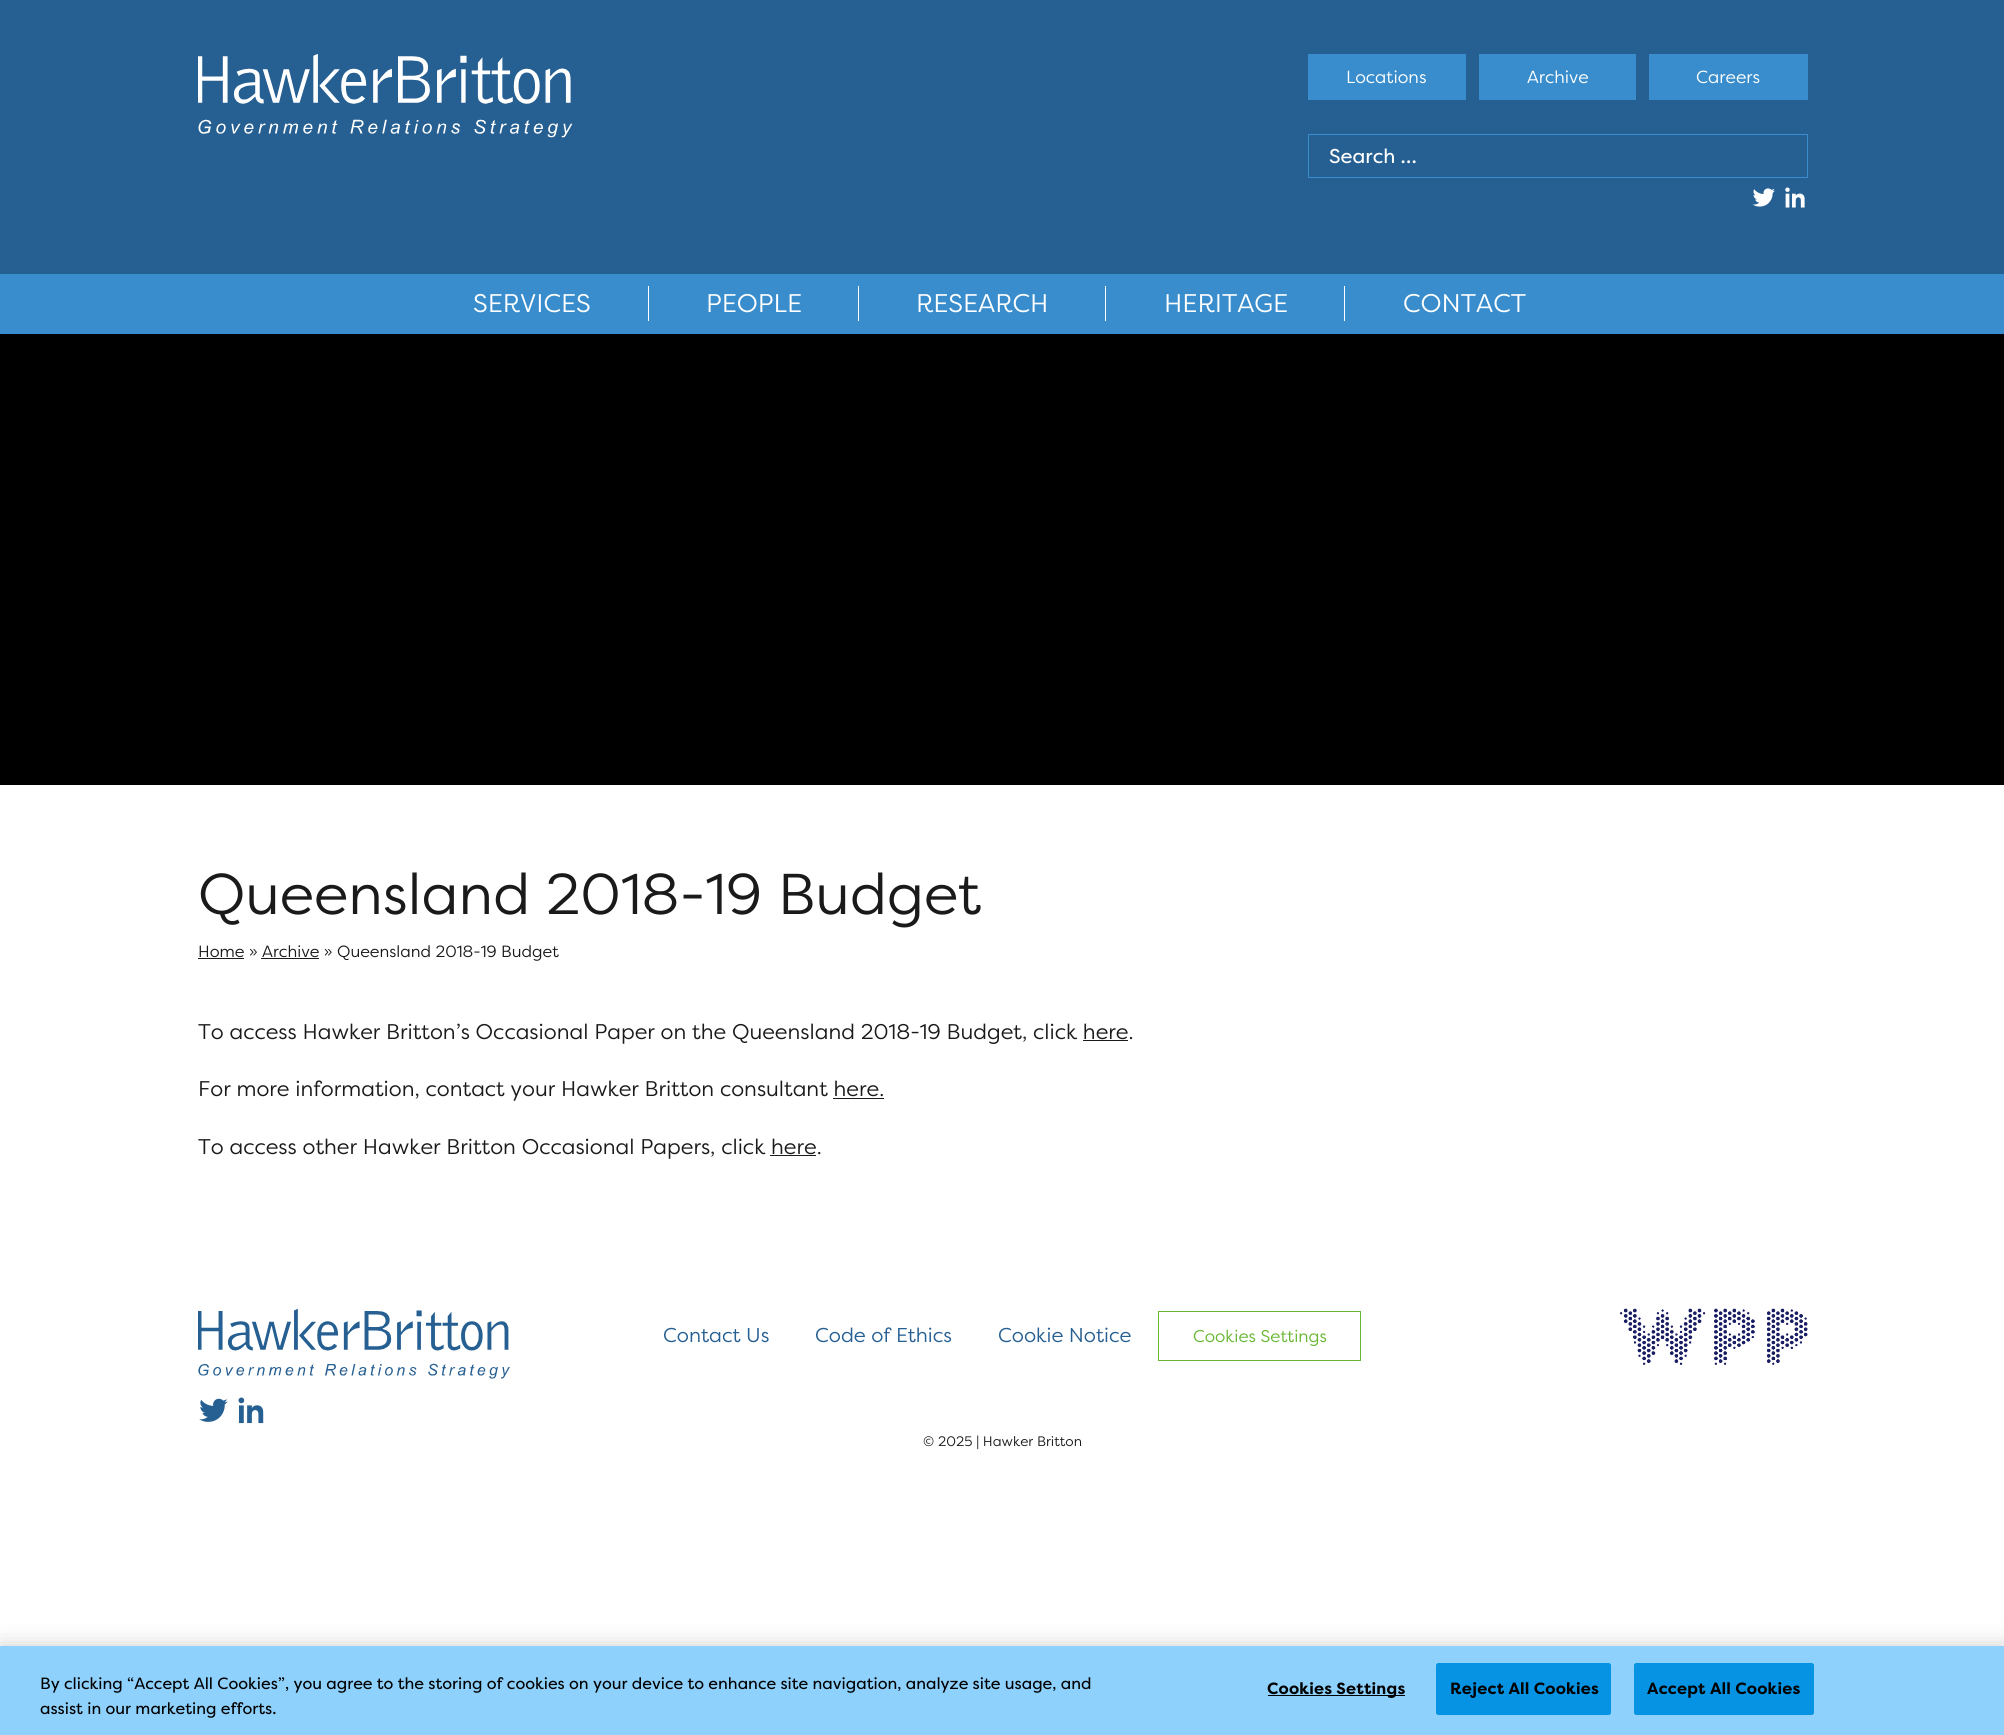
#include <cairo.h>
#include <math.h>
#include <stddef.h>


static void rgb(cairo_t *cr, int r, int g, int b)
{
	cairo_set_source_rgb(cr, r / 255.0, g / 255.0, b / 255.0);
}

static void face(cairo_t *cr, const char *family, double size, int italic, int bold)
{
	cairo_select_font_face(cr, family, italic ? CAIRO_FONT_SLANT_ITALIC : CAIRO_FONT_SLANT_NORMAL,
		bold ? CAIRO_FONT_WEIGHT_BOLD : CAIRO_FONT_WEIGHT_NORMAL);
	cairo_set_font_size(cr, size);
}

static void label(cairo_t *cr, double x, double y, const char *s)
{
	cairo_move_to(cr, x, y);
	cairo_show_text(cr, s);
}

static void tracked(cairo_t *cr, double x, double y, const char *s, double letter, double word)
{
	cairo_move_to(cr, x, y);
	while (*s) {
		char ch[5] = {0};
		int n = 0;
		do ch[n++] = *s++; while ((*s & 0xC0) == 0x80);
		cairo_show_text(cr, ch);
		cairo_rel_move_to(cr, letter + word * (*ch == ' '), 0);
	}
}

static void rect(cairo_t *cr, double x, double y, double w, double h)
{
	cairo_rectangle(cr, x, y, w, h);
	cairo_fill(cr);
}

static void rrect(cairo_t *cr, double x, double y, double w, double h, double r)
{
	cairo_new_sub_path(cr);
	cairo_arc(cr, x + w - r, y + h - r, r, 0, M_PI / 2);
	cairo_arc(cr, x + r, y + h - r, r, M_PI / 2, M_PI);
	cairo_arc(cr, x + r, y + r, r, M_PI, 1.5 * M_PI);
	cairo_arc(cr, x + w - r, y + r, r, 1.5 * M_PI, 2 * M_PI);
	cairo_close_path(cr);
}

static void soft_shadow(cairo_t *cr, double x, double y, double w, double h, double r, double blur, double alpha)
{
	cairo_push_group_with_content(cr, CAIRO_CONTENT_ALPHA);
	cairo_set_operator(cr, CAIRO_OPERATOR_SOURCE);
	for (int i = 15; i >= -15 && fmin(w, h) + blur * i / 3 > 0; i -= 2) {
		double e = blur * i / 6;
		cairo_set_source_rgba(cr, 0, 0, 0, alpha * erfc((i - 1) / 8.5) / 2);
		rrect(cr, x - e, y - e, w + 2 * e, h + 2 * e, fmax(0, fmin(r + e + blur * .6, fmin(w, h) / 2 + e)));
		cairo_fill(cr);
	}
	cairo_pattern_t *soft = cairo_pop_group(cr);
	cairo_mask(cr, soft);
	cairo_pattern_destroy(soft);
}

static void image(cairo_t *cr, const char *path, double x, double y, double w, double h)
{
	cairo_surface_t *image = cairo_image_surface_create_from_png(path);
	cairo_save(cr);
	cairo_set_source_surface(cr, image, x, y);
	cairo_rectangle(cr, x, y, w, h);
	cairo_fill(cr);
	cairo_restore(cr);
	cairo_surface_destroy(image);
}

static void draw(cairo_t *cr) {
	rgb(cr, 255, 255, 255);
	cairo_paint(cr);
	rgb(cr, 38, 95, 146);
	rect(cr, 0, 0, 2004, 274);
	image(cr, "image0.png", 198, 54, 375, 84);
	rgb(cr, 57, 141, 204);
	rect(cr, 1308, 54, 158, 46);
	face(cr, "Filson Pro", 17.5, 0, 0);
	rgb(cr, 255, 255, 255);
	label(cr, 1346, 83, "Locations");
	rgb(cr, 57, 141, 204);
	rect(cr, 1479, 54, 157, 46);
	rgb(cr, 255, 255, 255);
	label(cr, 1527, 83, "Archive");
	rgb(cr, 57, 141, 204);
	rect(cr, 1649, 54, 159, 46);
	rgb(cr, 255, 255, 255);
	label(cr, 1696, 83, "Careers");
	cairo_rectangle(cr, 1308.5, 134.5, 499, 43);
	rgb(cr, 57, 141, 204);
	cairo_set_line_width(cr, 1);
	cairo_stroke(cr);
	face(cr, "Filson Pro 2", 20, 0, 0);
	rgb(cr, 255, 255, 255);
	label(cr, 1329, 163, "Search …");
	image(cr, "image1.png", 1752, 188, 23, 19);
	image(cr, "image2.png", 1785, 187, 20, 21);
	rgb(cr, 57, 141, 204);
	rect(cr, 0, 274, 2004, 60);
	face(cr, "Filson Pro", 25.5, 0, 0);
	rgb(cr, 255, 255, 255);
	label(cr, 473, 312, "SERVICES");
	label(cr, 706, 312, "PEOPLE");
	rect(cr, 648, 286, 1, 35);
	label(cr, 916, 312, "RESEARCH");
	rect(cr, 858, 286, 1, 35);
	label(cr, 1164, 312, "HERITAGE");
	rect(cr, 1105, 286, 1, 35);
	label(cr, 1403, 312, "CONTACT");
	rect(cr, 1344, 286, 1, 35);
	rgb(cr, 0, 0, 0);
	rect(cr, 0, 334, 2004, 451);
	face(cr, "Filson Pro", 57.4, 0, 0);
	rgb(cr, 26, 26, 26);
	label(cr, 198, 914, "Queensland 2018-19 Budget");
	rect(cr, 198, 958, 46, 1);
	face(cr, "Filson Pro", 16.25, 0, 0);
	label(cr, 198, 957, "Home » Archive » Queensland 2018-19 Budget");
	rect(cr, 261, 958, 58, 1);
	face(cr, "Filson Pro", 21.25, 0, 0);
	label(cr, 198, 1039, "To access Hawker Britton’s Occasional Paper on the Queensland 2018-19 Budget, click here.");
	rect(cr, 1083, 1040, 45, 1);
	label(cr, 198, 1096, "For more information, contact your Hawker Britton consultant here.");
	rect(cr, 833, 1098, 51, 1);
	label(cr, 198, 1154, "To access other Hawker Britton Occasional Papers, click here.");
	rect(cr, 770, 1155, 46, 1);
	image(cr, "image3.png", 198, 1309, 312, 70);
	image(cr, "image4.png", 199, 1398, 29, 24);
	image(cr, "image5.png", 238, 1397, 26, 27);
	face(cr, "Filson Pro", 20, 0, 0);
	rgb(cr, 38, 95, 146);
	label(cr, 663, 1342, "Contact Us");
	label(cr, 815, 1342, "Code of Ethics");
	label(cr, 998, 1342, "Cookie Notice");
	cairo_rectangle(cr, 1158.5, 1311.5, 202, 49);
	rgb(cr, 104, 182, 49);
	cairo_stroke(cr);
	face(cr, "Filson Pro", 17, 0, 0);
	label(cr, 1193, 1342, "Cookies Settings");
	image(cr, "image6.png", 1620, 1308, 188, 57);
	face(cr, "Filson Pro", 13.75, 0, 0);
	rgb(cr, 26, 26, 26);
	label(cr, 923, 1446, "© 2025 | Hawker Britton");
	rgb(cr, 0, 0, 0);
	soft_shadow(cr, 0, 1646, 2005, 89, 0, 11, 0.2);
	rgb(cr, 142, 209, 252);
	rect(cr, 0, 1646, 2004, 89);
	face(cr, "Filson Pro 2", 16.25, 0, 0);
	rgb(cr, 0, 0, 0);
	label(cr, 40, 1689, "By clicking “Accept All Cookies”, you agree to the storing of cookies on your device to enhance site navigation, analyze site usage, and");
	label(cr, 40, 1714, "assist in our marketing efforts.");
	rect(cr, 1268, 1695, 137, 1);
	face(cr, "Filson Pro", 16.25, 0, 1);
	tracked(cr, 1267, 1694, "Cookies Settings", 0.2, 0);
	rgb(cr, 6, 147, 227);
	rrect(cr, 1436.5, 1663.5, 174, 51, 2);
	cairo_fill_preserve(cr);
	cairo_stroke(cr);
	rgb(cr, 0, 0, 0);
	tracked(cr, 1450, 1694, "Reject All Cookies", 0.2, 0);
	rgb(cr, 6, 147, 227);
	rrect(cr, 1634.5, 1663.5, 179, 51, 2);
	cairo_fill_preserve(cr);
	cairo_stroke(cr);
	rgb(cr, 0, 0, 0);
	tracked(cr, 1647, 1694, "Accept All Cookies", 0.2, 0);
}

int main(void) {
	cairo_surface_t *surface = cairo_image_surface_create(CAIRO_FORMAT_RGB24, 2004, 1735);
	cairo_t *cr = cairo_create(surface);
	cairo_font_options_t *options = cairo_font_options_create();
	cairo_font_options_set_hint_metrics(options, CAIRO_HINT_METRICS_OFF);
	cairo_font_options_set_hint_style(options, CAIRO_HINT_STYLE_NONE);
	cairo_set_font_options(cr, options);
	cairo_set_miter_limit(cr, 4);
	draw(cr);
	cairo_surface_write_to_png(surface, "render.png");
	cairo_font_options_destroy(options);
	cairo_destroy(cr);
	cairo_surface_destroy(surface);
	return 0;
}
